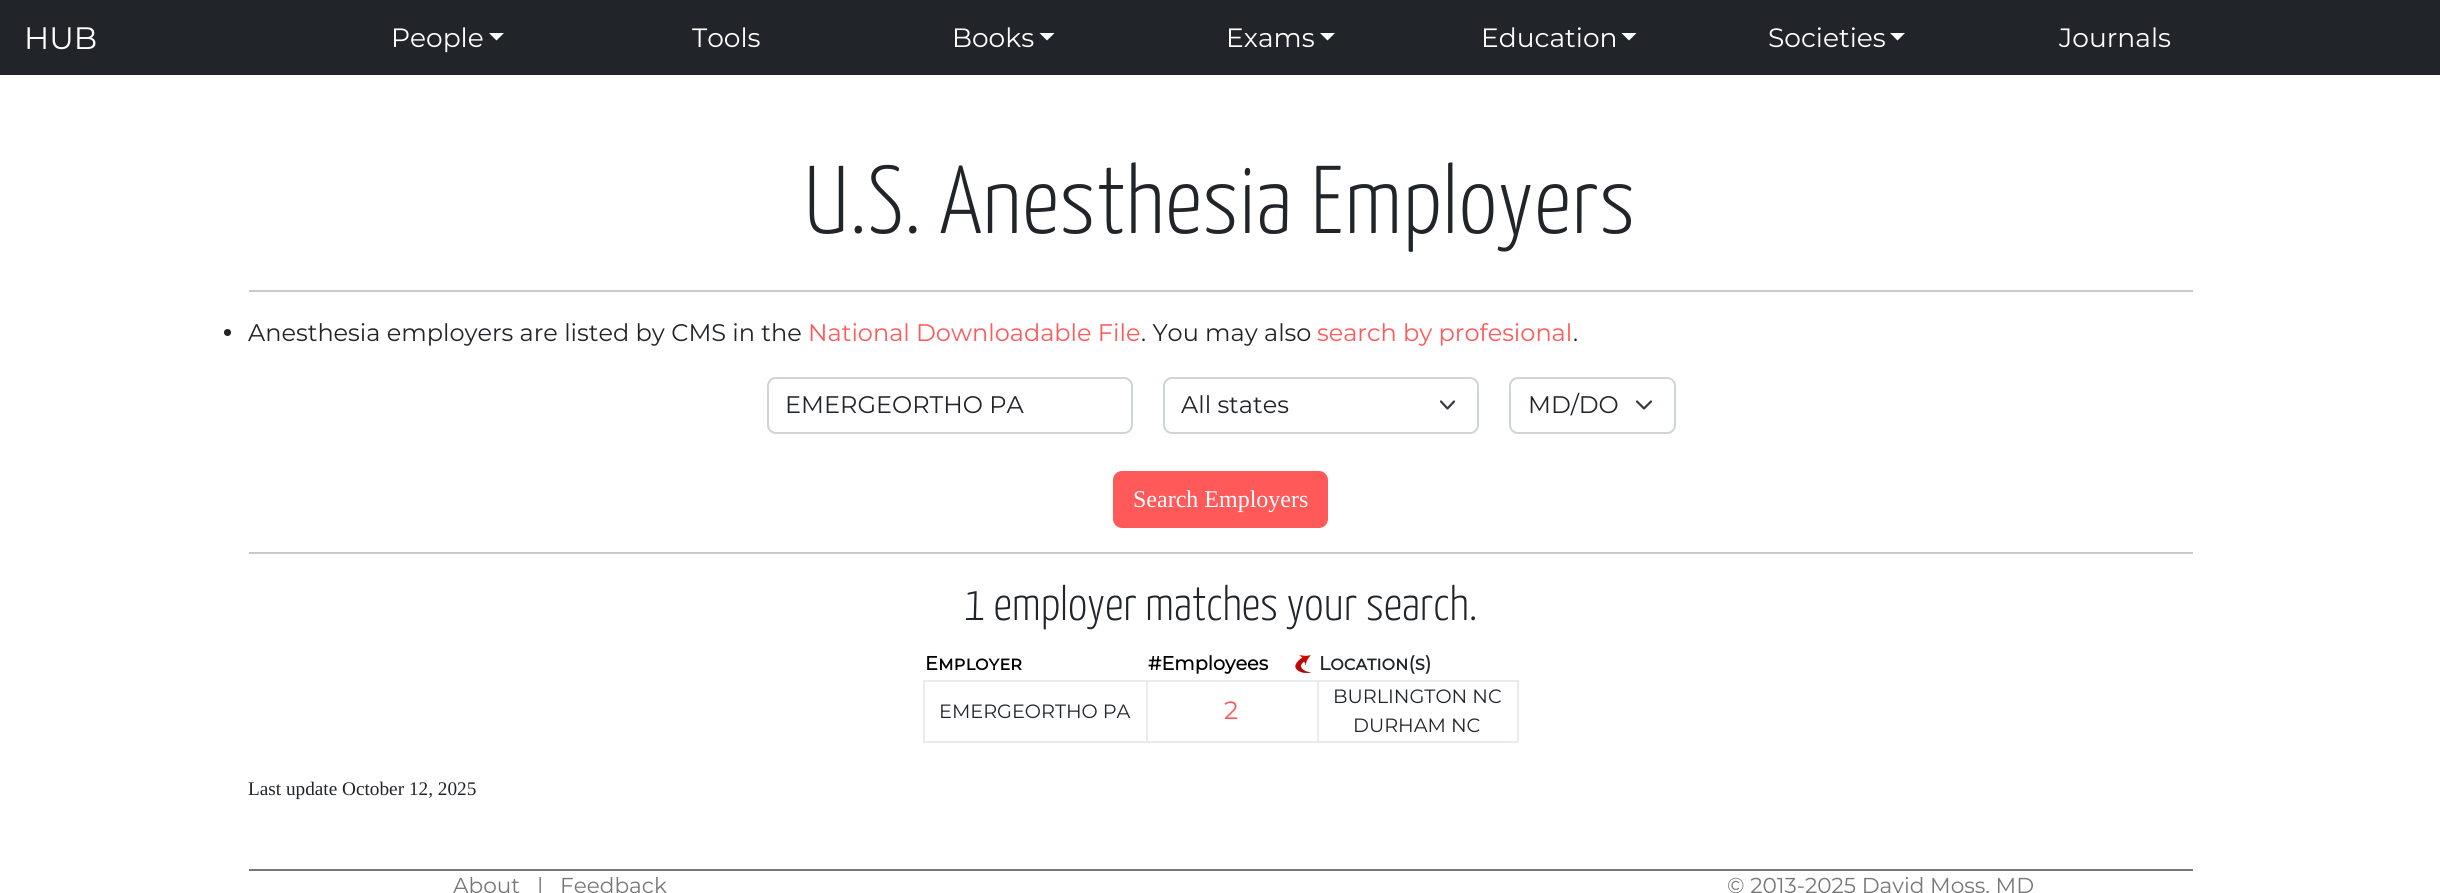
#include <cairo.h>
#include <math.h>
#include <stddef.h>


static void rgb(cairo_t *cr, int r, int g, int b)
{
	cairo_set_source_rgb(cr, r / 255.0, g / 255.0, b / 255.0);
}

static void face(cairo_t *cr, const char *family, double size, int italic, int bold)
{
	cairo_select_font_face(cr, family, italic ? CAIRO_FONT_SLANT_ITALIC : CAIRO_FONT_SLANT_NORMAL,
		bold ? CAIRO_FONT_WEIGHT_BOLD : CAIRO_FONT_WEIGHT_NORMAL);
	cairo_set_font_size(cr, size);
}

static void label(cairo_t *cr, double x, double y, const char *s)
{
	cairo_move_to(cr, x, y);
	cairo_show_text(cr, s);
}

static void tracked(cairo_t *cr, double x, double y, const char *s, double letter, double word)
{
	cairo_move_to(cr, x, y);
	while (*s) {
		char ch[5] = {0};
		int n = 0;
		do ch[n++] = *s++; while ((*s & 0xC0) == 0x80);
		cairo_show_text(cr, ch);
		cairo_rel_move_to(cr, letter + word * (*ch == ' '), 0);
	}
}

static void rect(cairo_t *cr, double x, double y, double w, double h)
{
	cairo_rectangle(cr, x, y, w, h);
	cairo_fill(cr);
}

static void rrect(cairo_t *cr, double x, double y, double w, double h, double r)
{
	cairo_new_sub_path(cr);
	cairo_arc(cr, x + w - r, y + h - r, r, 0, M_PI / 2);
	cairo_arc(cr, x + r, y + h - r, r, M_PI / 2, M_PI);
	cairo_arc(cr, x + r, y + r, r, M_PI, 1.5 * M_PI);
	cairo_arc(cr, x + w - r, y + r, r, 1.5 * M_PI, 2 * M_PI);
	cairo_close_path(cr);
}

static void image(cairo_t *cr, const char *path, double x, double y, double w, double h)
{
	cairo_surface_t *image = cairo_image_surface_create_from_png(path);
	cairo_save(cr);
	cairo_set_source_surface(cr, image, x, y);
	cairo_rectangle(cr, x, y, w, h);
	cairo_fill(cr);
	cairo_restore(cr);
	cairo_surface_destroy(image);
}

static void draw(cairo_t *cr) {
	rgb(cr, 255, 255, 255);
	cairo_paint(cr);
	rgb(cr, 33, 37, 41);
	rect(cr, 0, 0, 2440, 75);
	face(cr, "Montserrat", 31, 0, 0);
	rgb(cr, 255, 255, 255);
	label(cr, 24, 49, "HUB");
	face(cr, "Montserrat", 26.5, 0, 0);
	label(cr, 391, 47, "People");
	cairo_new_path(cr);
	cairo_move_to(cr, 489, 33);
	cairo_line_to(cr, 504, 33);
	cairo_line_to(cr, 496.5, 40.5);
	cairo_close_path(cr);
	cairo_fill(cr);
	label(cr, 692, 47, "Tools");
	label(cr, 952, 47, "Books");
	cairo_new_path(cr);
	cairo_move_to(cr, 1039.5, 33);
	cairo_line_to(cr, 1054.5, 33);
	cairo_line_to(cr, 1047, 40.5);
	cairo_close_path(cr);
	cairo_fill(cr);
	label(cr, 1226, 47, "Exams");
	cairo_new_path(cr);
	cairo_move_to(cr, 1320, 33);
	cairo_line_to(cr, 1335, 33);
	cairo_line_to(cr, 1327.5, 40.5);
	cairo_close_path(cr);
	cairo_fill(cr);
	label(cr, 1481, 47, "Education");
	cairo_new_path(cr);
	cairo_move_to(cr, 1621.5, 33);
	cairo_line_to(cr, 1636.5, 33);
	cairo_line_to(cr, 1629, 40.5);
	cairo_close_path(cr);
	cairo_fill(cr);
	label(cr, 1768, 47, "Societies");
	cairo_new_path(cr);
	cairo_move_to(cr, 1890, 33);
	cairo_line_to(cr, 1905, 33);
	cairo_line_to(cr, 1897.5, 40.5);
	cairo_close_path(cr);
	cairo_fill(cr);
	label(cr, 2059, 47, "Journals");
	face(cr, "Yanone Kaffeesatz Light", 96, 0, 0);
	rgb(cr, 33, 37, 41);
	tracked(cr, 804, 233, "U.S. Anesthesia Employers", 0.75, 0);
	rgb(cr, 200, 201, 202);
	rect(cr, 249, 290, 1944, 2);
	rgb(cr, 33, 37, 41);
	cairo_new_path(cr);
	cairo_arc(cr, 227.5, 332.5, 3.5, 0, 2 * M_PI);
	cairo_fill(cr);
	face(cr, "Montserrat", 24, 0, 0);
	label(cr, 248, 341, "Anesthesia employers are listed by CMS in the");
	rgb(cr, 255, 89, 90);
	label(cr, 808, 341, "National Downloadable File");
	rgb(cr, 33, 37, 41);
	label(cr, 1141, 341, ". You may also");
	rgb(cr, 255, 89, 90);
	label(cr, 1317, 341, "search by profesional");
	rgb(cr, 33, 37, 41);
	label(cr, 1573, 341, ".");
	rrect(cr, 768, 378, 364, 55, 8);
	rgb(cr, 206, 212, 218);
	cairo_stroke(cr);
	rgb(cr, 33, 37, 41);
	label(cr, 785, 413, "EMERGEORTHO PA");
	cairo_new_path(cr);
	cairo_move_to(cr, 1441, 401.5);
	cairo_line_to(cr, 1447.5, 408.5);
	cairo_line_to(cr, 1454, 401.5);
	rgb(cr, 52, 58, 64);
	cairo_set_line_width(cr, 2.2);
	cairo_set_line_cap(cr, CAIRO_LINE_CAP_ROUND);
	cairo_set_line_join(cr, CAIRO_LINE_JOIN_ROUND);
	cairo_stroke(cr);
	rrect(cr, 1164, 378, 314, 55, 8);
	rgb(cr, 206, 212, 218);
	cairo_set_line_width(cr, 2);
	cairo_set_line_cap(cr, CAIRO_LINE_CAP_BUTT);
	cairo_set_line_join(cr, CAIRO_LINE_JOIN_MITER);
	cairo_stroke(cr);
	rgb(cr, 33, 37, 41);
	label(cr, 1181, 413, "All states");
	cairo_new_path(cr);
	cairo_move_to(cr, 1637, 401.5);
	cairo_line_to(cr, 1644, 408.5);
	cairo_line_to(cr, 1651, 401.5);
	rgb(cr, 52, 58, 64);
	cairo_set_line_width(cr, 2.2);
	cairo_set_line_cap(cr, CAIRO_LINE_CAP_ROUND);
	cairo_set_line_join(cr, CAIRO_LINE_JOIN_ROUND);
	cairo_stroke(cr);
	rrect(cr, 1510, 378, 165, 55, 8);
	rgb(cr, 206, 212, 218);
	cairo_set_line_width(cr, 2);
	cairo_set_line_cap(cr, CAIRO_LINE_CAP_BUTT);
	cairo_set_line_join(cr, CAIRO_LINE_JOIN_MITER);
	cairo_stroke(cr);
	rgb(cr, 33, 37, 41);
	label(cr, 1528, 413, "MD/DO");
	rgb(cr, 255, 89, 90);
	rrect(cr, 1113, 471, 215, 57, 9);
	cairo_fill(cr);
	face(cr, "Liberation Serif", 24, 0, 0);
	rgb(cr, 255, 255, 255);
	label(cr, 1133, 507, "Search Employers");
	rgb(cr, 200, 201, 202);
	rect(cr, 249, 552, 1944, 2);
	face(cr, "Yanone Kaffeesatz Light", 48, 0, 0);
	rgb(cr, 33, 37, 41);
	label(cr, 964, 620, "1 employer matches your search.");
	face(cr, "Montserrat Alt", 19.25, 0, 1);
	rgb(cr, 0, 0, 0);
	label(cr, 925, 670, "Employer");
	face(cr, "Montserrat", 19.25, 0, 1);
	label(cr, 1148, 670, "#Employees");
	image(cr, "image0.png", 1295, 654, 17, 20);
	face(cr, "Montserrat Alt", 19.25, 0, 1);
	rgb(cr, 33, 37, 41);
	label(cr, 1319, 670, "Location(s)");
	rgb(cr, 233, 236, 239);
	rect(cr, 1317, 680, 201, 2);
	rect(cr, 1517, 680, 2, 63);
	rect(cr, 1317, 741, 201, 2);
	rect(cr, 1317, 680, 2, 63);
	rect(cr, 1146, 680, 173, 2);
	rect(cr, 1146, 741, 173, 2);
	rect(cr, 1146, 680, 2, 63);
	rect(cr, 923, 680, 225, 2);
	rect(cr, 923, 741, 225, 2);
	rect(cr, 923, 680, 2, 63);
	face(cr, "Montserrat", 19.25, 0, 0);
	rgb(cr, 33, 37, 41);
	label(cr, 939, 718, "EMERGEORTHO PA");
	face(cr, "Montserrat", 25, 0, 0);
	rgb(cr, 255, 89, 90);
	label(cr, 1224, 719, "2");
	face(cr, "Montserrat", 19.25, 0, 0);
	rgb(cr, 33, 37, 41);
	label(cr, 1333, 703, "BURLINGTON NC");
	label(cr, 1353, 732, "DURHAM NC");
	face(cr, "Liberation Serif", 19.25, 0, 0);
	label(cr, 248, 795, "Last update October 12, 2025");
	rgb(cr, 119, 119, 119);
	rect(cr, 249, 869, 1944, 2);
	face(cr, "Montserrat", 21.6, 0, 0);
	label(cr, 453, 893, "About");
	label(cr, 537, 893, "|");
	label(cr, 560, 893, "Feedback");
	label(cr, 1727, 893, "© 2013-2025 David Moss, MD");
}

int main(void) {
	cairo_surface_t *surface = cairo_image_surface_create(CAIRO_FORMAT_RGB24, 2440, 893);
	cairo_t *cr = cairo_create(surface);
	cairo_font_options_t *options = cairo_font_options_create();
	cairo_font_options_set_hint_metrics(options, CAIRO_HINT_METRICS_OFF);
	cairo_font_options_set_hint_style(options, CAIRO_HINT_STYLE_NONE);
	cairo_set_font_options(cr, options);
	cairo_set_miter_limit(cr, 4);
	draw(cr);
	cairo_surface_write_to_png(surface, "render.png");
	cairo_font_options_destroy(options);
	cairo_destroy(cr);
	cairo_surface_destroy(surface);
	return 0;
}
